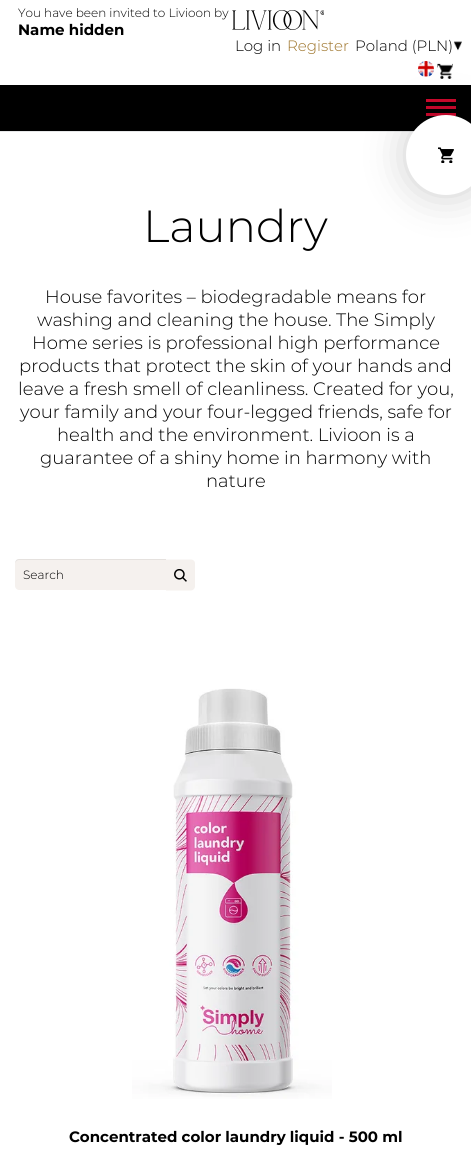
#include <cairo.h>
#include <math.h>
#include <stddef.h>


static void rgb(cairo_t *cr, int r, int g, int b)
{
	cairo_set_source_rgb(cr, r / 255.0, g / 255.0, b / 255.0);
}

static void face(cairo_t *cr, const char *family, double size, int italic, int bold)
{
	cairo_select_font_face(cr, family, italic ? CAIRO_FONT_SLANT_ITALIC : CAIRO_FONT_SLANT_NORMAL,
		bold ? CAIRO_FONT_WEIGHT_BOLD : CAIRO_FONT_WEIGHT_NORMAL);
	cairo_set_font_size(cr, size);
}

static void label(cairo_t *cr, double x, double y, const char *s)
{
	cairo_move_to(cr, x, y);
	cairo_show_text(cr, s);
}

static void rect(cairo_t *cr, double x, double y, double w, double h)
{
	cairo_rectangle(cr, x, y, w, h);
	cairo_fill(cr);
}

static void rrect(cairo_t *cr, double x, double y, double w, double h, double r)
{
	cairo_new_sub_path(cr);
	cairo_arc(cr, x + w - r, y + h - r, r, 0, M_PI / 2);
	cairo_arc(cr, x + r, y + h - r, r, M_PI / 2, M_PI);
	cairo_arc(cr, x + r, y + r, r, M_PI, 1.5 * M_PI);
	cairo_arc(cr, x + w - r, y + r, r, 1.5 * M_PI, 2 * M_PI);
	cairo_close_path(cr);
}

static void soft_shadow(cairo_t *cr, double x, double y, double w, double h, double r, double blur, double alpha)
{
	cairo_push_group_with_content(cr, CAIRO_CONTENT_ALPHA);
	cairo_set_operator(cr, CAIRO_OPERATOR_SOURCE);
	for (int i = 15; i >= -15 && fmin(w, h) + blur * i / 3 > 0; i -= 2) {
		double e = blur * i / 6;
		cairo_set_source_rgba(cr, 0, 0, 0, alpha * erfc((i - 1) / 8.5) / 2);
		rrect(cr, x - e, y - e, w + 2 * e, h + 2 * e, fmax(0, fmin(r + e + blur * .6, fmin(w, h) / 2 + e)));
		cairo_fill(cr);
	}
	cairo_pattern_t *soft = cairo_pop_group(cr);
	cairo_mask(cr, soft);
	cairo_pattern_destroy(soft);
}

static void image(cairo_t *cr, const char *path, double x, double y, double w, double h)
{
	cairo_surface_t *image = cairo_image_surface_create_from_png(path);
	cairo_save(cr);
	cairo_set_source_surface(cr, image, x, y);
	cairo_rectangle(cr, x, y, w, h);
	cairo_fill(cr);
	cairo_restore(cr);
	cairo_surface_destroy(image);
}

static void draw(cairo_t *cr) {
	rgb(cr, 255, 255, 255);
	cairo_paint(cr);
	face(cr, "Montserrat Light", 12, 0, 0);
	rgb(cr, 0, 0, 0);
	label(cr, 18, 17, "You have been invited to Livioon by");
	face(cr, "Montserrat", 15, 0, 1);
	label(cr, 18, 35, "Name hidden");
	image(cr, "image0.png", 232, 10, 92, 20);
	face(cr, "Montserrat Light", 15, 0, 0);
	label(cr, 235, 51, "Log in");
	rgb(cr, 156, 114, 39);
	label(cr, 287, 51, "Register");
	rgb(cr, 0, 0, 0);
	label(cr, 355, 51, "Poland (PLN)");
	image(cr, "image1.png", 453, 41, 9, 10);
	image(cr, "image2.png", 418, 61, 16, 16);
	image(cr, "image3.png", 437, 63, 16, 16);
	rect(cr, 0, 85, 471, 46);
	rgb(cr, 230, 231, 232);
	rect(cr, 0, 131, 414, 1);
	rgb(cr, 208, 8, 45);
	rect(cr, 426, 99, 30, 3);
	rect(cr, 426, 106, 30, 3);
	rect(cr, 426, 113, 30, 3);
	rgb(cr, 0, 0, 0);
	soft_shadow(cr, 406, 115, 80, 80, 40, 20, 0.2);
	rgb(cr, 255, 255, 255);
	cairo_arc(cr, 446, 155, 40, 0, 2 * M_PI);
	cairo_fill(cr);
	image(cr, "image4.png", 438, 147, 16, 16);
	face(cr, "Montserrat Light", 45, 0, 0);
	rgb(cr, 0, 0, 0);
	label(cr, 143, 242, "Laundry");
	face(cr, "Montserrat Light", 18, 0, 0);
	label(cr, 45, 303, "House favorites – biodegradable means for");
	label(cr, 37, 326, "washing and cleaning the house. The Simply");
	label(cr, 32, 349, "Home series is professional high performance");
	label(cr, 19, 372, "products that protect the skin of your hands and");
	label(cr, 18, 395, "leave a fresh smell of cleanliness. Created for you,");
	label(cr, 20, 418, "your family and your four-legged friends, safe for");
	label(cr, 57, 441, "health and the environment. Livioon is a");
	label(cr, 40, 464, "guarantee of a shiny home in harmony with");
	label(cr, 206, 487, "nature");
	rgb(cr, 245, 241, 238);
	cairo_new_path(cr);
	cairo_move_to(cr, 19, 559);
	cairo_line_to(cr, 166, 559);
	cairo_line_to(cr, 166, 590);
	cairo_line_to(cr, 19, 590);
	cairo_curve_to(cr, 17, 590, 15, 588, 15, 586);
	cairo_line_to(cr, 15, 563);
	cairo_curve_to(cr, 15, 561, 17, 559, 19, 559);
	cairo_close_path(cr);
	cairo_fill(cr);
	cairo_set_source_rgba(cr, 0, 0, 0, 0.07);
	cairo_new_path(cr);
	cairo_move_to(cr, 19, 560);
	cairo_line_to(cr, 166, 560);
	cairo_line_to(cr, 166, 559);
	cairo_line_to(cr, 19, 559);
	cairo_curve_to(cr, 16, 559, 15, 561, 15, 564);
	cairo_curve_to(cr, 15, 562, 17, 560, 19, 560);
	cairo_close_path(cr);
	cairo_fill(cr);
	face(cr, "Montserrat Light", 12, 0, 0);
	rgb(cr, 0, 0, 0);
	label(cr, 23, 579, "Search");
	rgb(cr, 245, 241, 238);
	cairo_new_path(cr);
	cairo_move_to(cr, 191, 559.5);
	cairo_line_to(cr, 166, 559.5);
	cairo_line_to(cr, 166, 590.5);
	cairo_line_to(cr, 191, 590.5);
	cairo_curve_to(cr, 193, 590.5, 195, 588.5, 195, 586.5);
	cairo_line_to(cr, 195, 563.5);
	cairo_curve_to(cr, 195, 561, 193, 559.5, 191, 559.5);
	cairo_close_path(cr);
	cairo_fill(cr);
	image(cr, "image5.png", 174, 569, 13, 13);
	image(cr, "image6.png", 132, 688, 200, 411);
	face(cr, "Montserrat", 15, 0, 1);
	rgb(cr, 0, 0, 0);
	label(cr, 69, 1142, "Concentrated color laundry liquid - 500 ml");
}

int main(void) {
	cairo_surface_t *surface = cairo_image_surface_create(CAIRO_FORMAT_RGB24, 471, 1152);
	cairo_t *cr = cairo_create(surface);
	cairo_font_options_t *options = cairo_font_options_create();
	cairo_font_options_set_hint_metrics(options, CAIRO_HINT_METRICS_OFF);
	cairo_font_options_set_hint_style(options, CAIRO_HINT_STYLE_NONE);
	cairo_set_font_options(cr, options);
	cairo_set_miter_limit(cr, 4);
	draw(cr);
	cairo_surface_write_to_png(surface, "render.png");
	cairo_font_options_destroy(options);
	cairo_destroy(cr);
	cairo_surface_destroy(surface);
	return 0;
}
